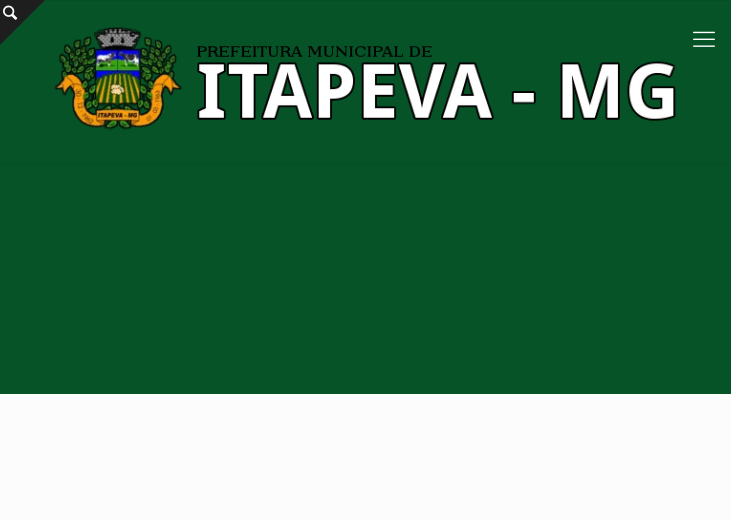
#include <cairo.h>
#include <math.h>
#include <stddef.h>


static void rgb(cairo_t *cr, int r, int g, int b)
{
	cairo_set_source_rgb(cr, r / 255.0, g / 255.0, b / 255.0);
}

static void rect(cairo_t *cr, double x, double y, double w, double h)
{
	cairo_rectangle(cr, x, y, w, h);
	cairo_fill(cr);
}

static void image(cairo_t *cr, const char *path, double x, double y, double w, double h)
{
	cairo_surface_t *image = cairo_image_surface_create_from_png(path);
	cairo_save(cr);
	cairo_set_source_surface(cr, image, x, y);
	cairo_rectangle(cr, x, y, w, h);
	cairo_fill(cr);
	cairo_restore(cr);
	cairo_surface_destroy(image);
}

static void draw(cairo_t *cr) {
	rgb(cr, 252, 252, 252);
	cairo_paint(cr);
	rgb(cr, 6, 78, 37);
	rect(cr, 44, 0, 687, 1);
	rgb(cr, 6, 83, 39);
	rect(cr, 0, 1, 731, 162);
	rgb(cr, 30, 30, 30);
	cairo_new_path(cr);
	cairo_move_to(cr, 0, 0);
	cairo_line_to(cr, 45, 0);
	cairo_line_to(cr, 0, 45);
	cairo_close_path(cr);
	cairo_fill(cr);
	image(cr, "image0.png", 3, 5, 15, 15);
	rgb(cr, 6, 76, 36);
	rect(cr, 0, 163, 731, 1);
	image(cr, "image1.png", 54, 27, 622, 104);
	image(cr, "image2.png", 693, 31, 22, 16);
	rgb(cr, 6, 83, 39);
	rect(cr, 0, 164, 731, 230);
}

int main(void) {
	cairo_surface_t *surface = cairo_image_surface_create(CAIRO_FORMAT_RGB24, 731, 520);
	cairo_t *cr = cairo_create(surface);
	cairo_font_options_t *options = cairo_font_options_create();
	cairo_font_options_set_hint_metrics(options, CAIRO_HINT_METRICS_OFF);
	cairo_font_options_set_hint_style(options, CAIRO_HINT_STYLE_NONE);
	cairo_set_font_options(cr, options);
	cairo_set_miter_limit(cr, 4);
	draw(cr);
	cairo_surface_write_to_png(surface, "render.png");
	cairo_font_options_destroy(options);
	cairo_destroy(cr);
	cairo_surface_destroy(surface);
	return 0;
}
